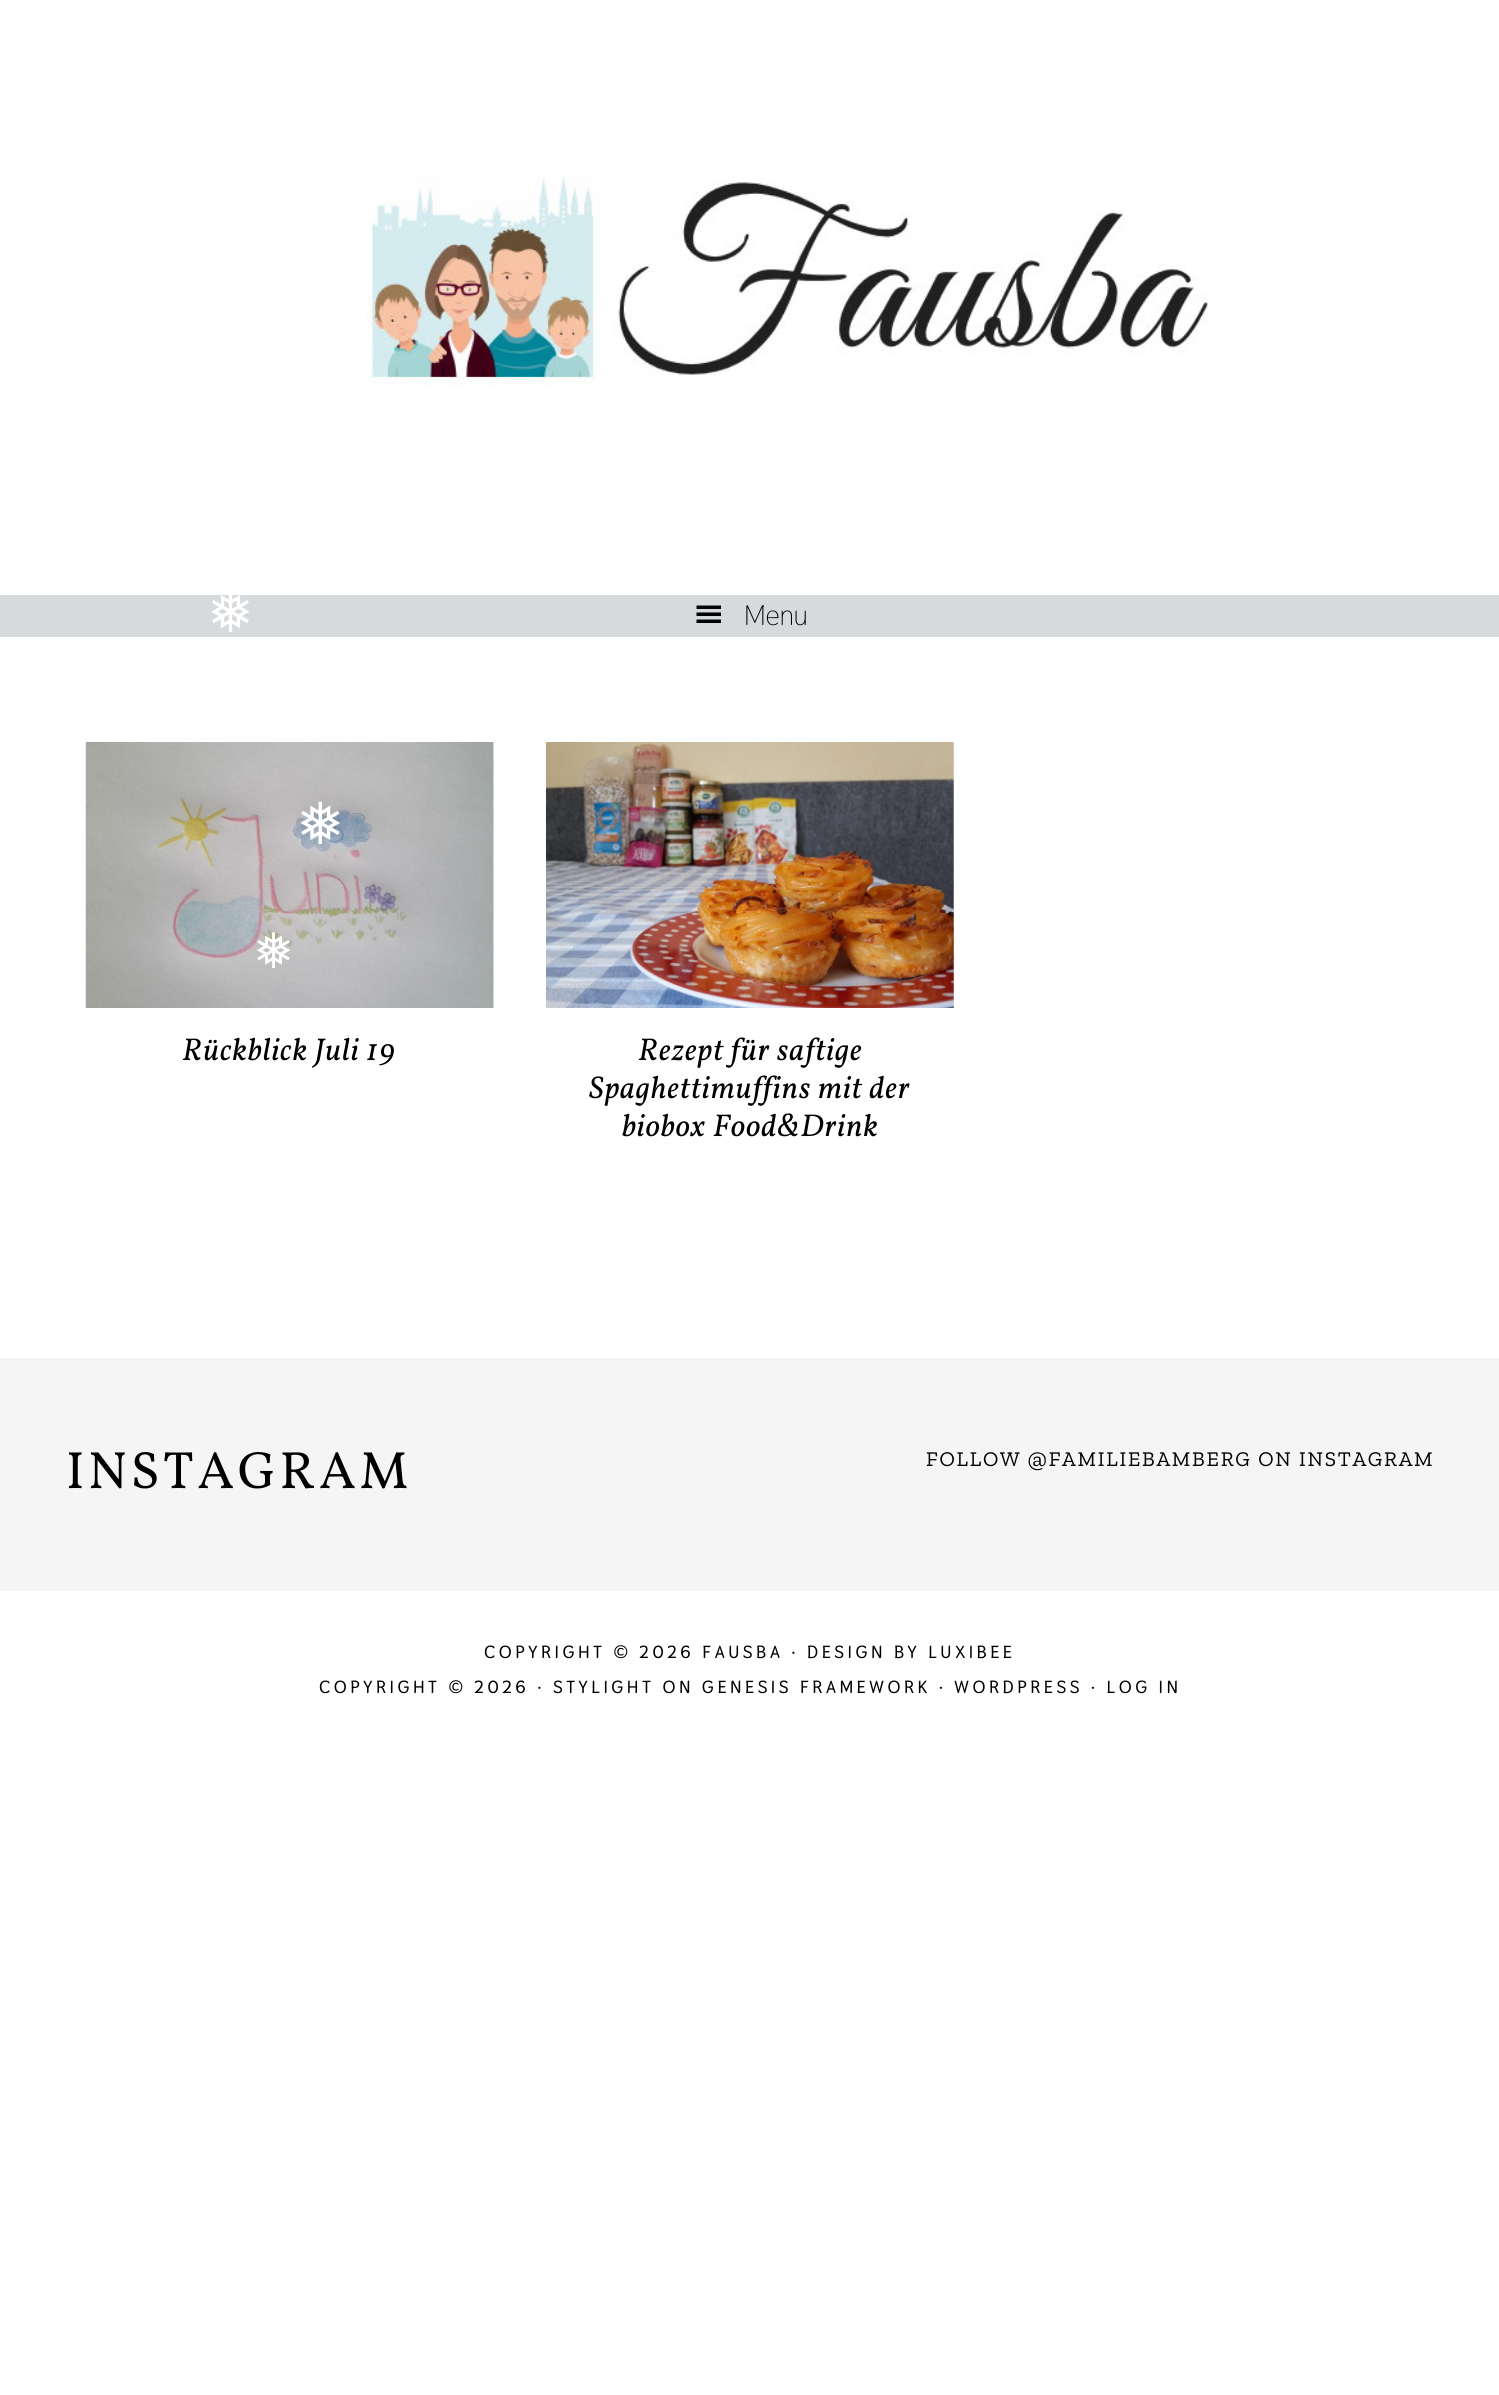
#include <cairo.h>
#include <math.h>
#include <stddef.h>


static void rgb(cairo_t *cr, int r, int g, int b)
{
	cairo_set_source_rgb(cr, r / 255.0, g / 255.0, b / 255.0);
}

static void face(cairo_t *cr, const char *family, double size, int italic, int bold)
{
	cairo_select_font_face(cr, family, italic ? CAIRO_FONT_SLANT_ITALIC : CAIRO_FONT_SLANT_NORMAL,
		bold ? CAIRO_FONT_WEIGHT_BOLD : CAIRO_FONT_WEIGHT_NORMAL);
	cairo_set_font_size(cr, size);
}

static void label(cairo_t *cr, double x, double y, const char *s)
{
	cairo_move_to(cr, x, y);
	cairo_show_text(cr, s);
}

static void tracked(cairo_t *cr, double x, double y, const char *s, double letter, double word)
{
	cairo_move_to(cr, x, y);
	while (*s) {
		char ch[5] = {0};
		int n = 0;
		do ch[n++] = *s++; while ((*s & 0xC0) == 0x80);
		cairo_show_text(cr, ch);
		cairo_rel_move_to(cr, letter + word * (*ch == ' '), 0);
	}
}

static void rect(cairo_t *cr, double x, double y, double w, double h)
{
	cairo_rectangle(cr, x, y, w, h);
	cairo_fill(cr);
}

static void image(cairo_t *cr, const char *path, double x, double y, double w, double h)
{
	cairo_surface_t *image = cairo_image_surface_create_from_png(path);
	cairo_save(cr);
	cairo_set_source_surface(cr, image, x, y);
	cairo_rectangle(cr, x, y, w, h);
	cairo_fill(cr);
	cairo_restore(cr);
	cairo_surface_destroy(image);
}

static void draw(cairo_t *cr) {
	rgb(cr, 255, 255, 255);
	cairo_paint(cr);
	rgb(cr, 215, 218, 221);
	rect(cr, 0, 595, 1499, 42);
	face(cr, "DejaVu Sans", 56, 0, 0);
	rgb(cr, 255, 255, 255);
	label(cr, 207, 632, "❅");
	image(cr, "image2.png", 85, 742, 409, 266);
	face(cr, "DejaVu Sans", 58, 0, 0);
	label(cr, 296, 844, "❅");
	face(cr, "DejaVu Sans", 49, 0, 0);
	label(cr, 253, 968, "❅");
	image(cr, "image0.png", 366, 176, 842, 210);
	image(cr, "image1.png", 696, 605, 25, 18);
	face(cr, "Thasadith", 28, 0, 0);
	rgb(cr, 0, 0, 0);
	label(cr, 744, 625, "Menu");
	face(cr, "Vollkorn", 31.5, 1, 0);
	tracked(cr, 182, 1060, "Rückblick Juli 19", 0.9, 0);
	image(cr, "image3.png", 546, 742, 408, 266);
	tracked(cr, 638, 1060, "Rezept für saftige", 0.9, 0);
	tracked(cr, 589, 1098, "Spaghettimuffins mit der", 0.9, 0);
	tracked(cr, 622, 1136, "biobox Food&Drink", 0.9, 0);
	rgb(cr, 245, 245, 245);
	rect(cr, 0, 1358, 1499, 233);
	face(cr, "Vollkorn", 52.5, 0, 0);
	rgb(cr, 0, 0, 0);
	tracked(cr, 66, 1488, "INSTAGRAM", 3.5, 0);
	face(cr, "Zilla Slab", 21, 0, 0);
	tracked(cr, 926, 1466, "FOLLOW @FAMILIEBAMBERG ON INSTAGRAM", 1.75, 0);
	face(cr, "Thasadith", 17.5, 0, 1);
	tracked(cr, 484, 1658, "COPYRIGHT © 2026 FAUSBA · DESIGN BY LUXIBEE", 3.5, 0);
	tracked(cr, 319, 1693, "COPYRIGHT © 2026 · STYLIGHT ON GENESIS FRAMEWORK · WORDPRESS · LOG IN", 3.5, 0);
}

int main(void) {
	cairo_surface_t *surface = cairo_image_surface_create(CAIRO_FORMAT_RGB24, 1499, 2395);
	cairo_t *cr = cairo_create(surface);
	cairo_font_options_t *options = cairo_font_options_create();
	cairo_font_options_set_hint_metrics(options, CAIRO_HINT_METRICS_OFF);
	cairo_font_options_set_hint_style(options, CAIRO_HINT_STYLE_NONE);
	cairo_set_font_options(cr, options);
	cairo_set_miter_limit(cr, 4);
	draw(cr);
	cairo_surface_write_to_png(surface, "render.png");
	cairo_font_options_destroy(options);
	cairo_destroy(cr);
	cairo_surface_destroy(surface);
	return 0;
}
